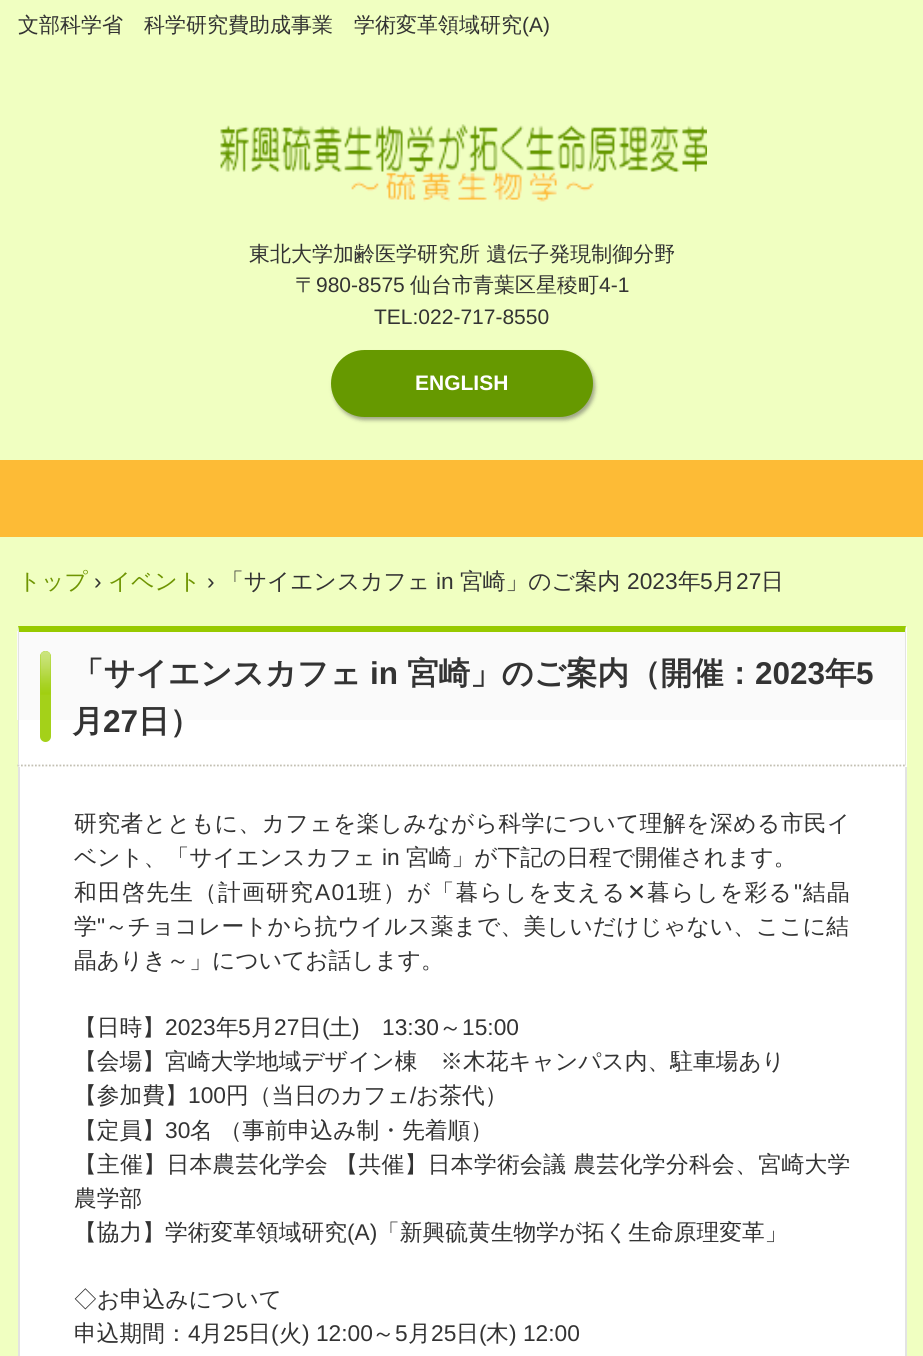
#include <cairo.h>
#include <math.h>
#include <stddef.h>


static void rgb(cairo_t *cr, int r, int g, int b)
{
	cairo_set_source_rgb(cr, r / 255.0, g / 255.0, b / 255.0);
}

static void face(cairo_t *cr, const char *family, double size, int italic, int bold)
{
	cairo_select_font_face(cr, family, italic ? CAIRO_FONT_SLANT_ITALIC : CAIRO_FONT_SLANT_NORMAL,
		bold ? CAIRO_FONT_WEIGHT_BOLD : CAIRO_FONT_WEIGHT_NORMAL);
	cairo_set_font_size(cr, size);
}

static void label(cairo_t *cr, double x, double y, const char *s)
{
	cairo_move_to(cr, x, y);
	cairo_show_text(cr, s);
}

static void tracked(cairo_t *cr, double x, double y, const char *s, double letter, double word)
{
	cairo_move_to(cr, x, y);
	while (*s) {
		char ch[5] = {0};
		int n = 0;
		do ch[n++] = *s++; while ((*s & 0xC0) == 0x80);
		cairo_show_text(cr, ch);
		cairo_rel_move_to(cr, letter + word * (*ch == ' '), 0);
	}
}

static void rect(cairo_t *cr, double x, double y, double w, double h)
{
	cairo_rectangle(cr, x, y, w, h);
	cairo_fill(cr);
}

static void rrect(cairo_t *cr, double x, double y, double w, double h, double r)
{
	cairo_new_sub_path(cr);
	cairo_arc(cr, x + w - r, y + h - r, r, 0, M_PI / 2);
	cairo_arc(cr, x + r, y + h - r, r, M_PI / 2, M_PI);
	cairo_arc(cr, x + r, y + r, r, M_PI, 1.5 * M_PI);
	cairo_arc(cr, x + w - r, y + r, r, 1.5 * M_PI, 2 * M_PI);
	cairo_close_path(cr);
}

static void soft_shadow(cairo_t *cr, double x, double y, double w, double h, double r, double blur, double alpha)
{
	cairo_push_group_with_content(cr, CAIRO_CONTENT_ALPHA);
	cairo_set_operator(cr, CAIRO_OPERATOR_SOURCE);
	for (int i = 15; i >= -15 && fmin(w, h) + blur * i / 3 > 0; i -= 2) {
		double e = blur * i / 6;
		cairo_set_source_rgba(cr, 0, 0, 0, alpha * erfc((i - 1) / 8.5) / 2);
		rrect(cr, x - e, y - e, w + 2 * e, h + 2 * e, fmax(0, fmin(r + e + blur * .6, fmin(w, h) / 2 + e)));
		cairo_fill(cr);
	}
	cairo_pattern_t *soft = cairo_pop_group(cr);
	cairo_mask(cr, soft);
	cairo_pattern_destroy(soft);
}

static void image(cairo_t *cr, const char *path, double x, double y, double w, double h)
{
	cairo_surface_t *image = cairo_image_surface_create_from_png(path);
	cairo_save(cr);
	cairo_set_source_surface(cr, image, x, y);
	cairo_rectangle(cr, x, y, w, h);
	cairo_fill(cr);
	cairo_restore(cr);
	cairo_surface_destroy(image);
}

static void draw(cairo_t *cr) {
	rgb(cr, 240, 255, 193);
	cairo_paint(cr);
	face(cr, "WenQuanYi Zen Hei Medium", 21, 0, 0);
	rgb(cr, 51, 51, 51);
	label(cr, 18, 32, "文部科学省　科学研究費助成事業　学術変革領域研究");
	face(cr, "Liberation Sans", 21, 0, 0);
	label(cr, 522, 32, "(A)");
	image(cr, "image0.png", 220, 124, 487, 78);
	face(cr, "WenQuanYi Zen Hei Medium", 21, 0, 0);
	label(cr, 249, 261, "東北大学加齢医学研究所 遺伝子発現制御分野");
	label(cr, 295, 292, "〒");
	face(cr, "Liberation Sans", 21, 0, 0);
	label(cr, 316, 292, "980-8575");
	face(cr, "WenQuanYi Zen Hei Medium", 21, 0, 0);
	label(cr, 410, 292, "仙台市青葉区星稜町");
	face(cr, "Liberation Sans", 21, 0, 0);
	label(cr, 599, 292, "4-1");
	label(cr, 374, 324, "TEL:022-717-8550");
	rgb(cr, 77, 77, 77);
	soft_shadow(cr, 333, 354, 262, 66, 33, 2, 0.5);
	rgb(cr, 102, 153, 0);
	rrect(cr, 331, 350, 262, 67, 33.5);
	cairo_fill(cr);
	face(cr, "Liberation Sans", 21, 0, 1);
	rgb(cr, 255, 255, 255);
	label(cr, 415, 390, "ENGLISH");
	rgb(cr, 253, 187, 54);
	rect(cr, 0, 460, 923, 77);
	face(cr, "WenQuanYi Zen Hei Medium", 22.75, 0, 0);
	rgb(cr, 111, 149, 2);
	label(cr, 18, 589, "トップ");
	face(cr, "Liberation Sans", 22.75, 0, 0);
	rgb(cr, 51, 51, 51);
	label(cr, 94, 589, "›");
	face(cr, "WenQuanYi Zen Hei Medium", 22.75, 0, 0);
	rgb(cr, 111, 149, 2);
	label(cr, 108, 589, "イベント");
	face(cr, "Liberation Sans", 22.75, 0, 0);
	rgb(cr, 51, 51, 51);
	label(cr, 207, 589, "›");
	face(cr, "WenQuanYi Zen Hei Medium", 22.75, 0, 0);
	label(cr, 221, 589, "「サイエンスカフェ");
	face(cr, "Liberation Sans", 22.75, 0, 0);
	label(cr, 436, 589, "in");
	face(cr, "WenQuanYi Zen Hei Medium", 22.75, 0, 0);
	label(cr, 460, 589, "宮崎」のご案内");
	face(cr, "Liberation Sans", 22.75, 0, 0);
	label(cr, 627, 589, "2023");
	face(cr, "WenQuanYi Zen Hei Medium", 22.75, 0, 0);
	label(cr, 678, 589, "年");
	face(cr, "Liberation Sans", 22.75, 0, 0);
	label(cr, 700, 589, "5");
	face(cr, "WenQuanYi Zen Hei Medium", 22.75, 0, 0);
	label(cr, 713, 589, "月");
	face(cr, "Liberation Sans", 22.75, 0, 0);
	label(cr, 736, 589, "27");
	face(cr, "WenQuanYi Zen Hei Medium", 22.75, 0, 0);
	label(cr, 761, 589, "日");
	rgb(cr, 255, 255, 255);
	rect(cr, 18, 627, 889, 140);
	rgb(cr, 250, 250, 250);
	rect(cr, 17, 631, 889, 89);
	rgb(cr, 151, 202, 0);
	cairo_new_path(cr);
	cairo_move_to(cr, 18, 626);
	cairo_line_to(cr, 906, 626);
	cairo_line_to(cr, 905, 632);
	cairo_line_to(cr, 19, 632);
	cairo_close_path(cr);
	cairo_fill(cr);
	rgb(cr, 227, 227, 227);
	cairo_new_path(cr);
	cairo_move_to(cr, 906, 626);
	cairo_line_to(cr, 906, 766);
	cairo_line_to(cr, 905, 765);
	cairo_line_to(cr, 905, 632);
	cairo_close_path(cr);
	cairo_fill(cr);
	cairo_new_path(cr);
	cairo_move_to(cr, 17.5, 765.5);
	cairo_line_to(cr, 906.5, 765.5);
	rgb(cr, 195, 192, 179);
	cairo_set_line_width(cr, 1.8);
	cairo_set_dash(cr, (double[]){1.75, 1.75}, 2, 0);
	cairo_stroke(cr);
	rgb(cr, 227, 227, 227);
	cairo_new_path(cr);
	cairo_move_to(cr, 18, 766);
	cairo_line_to(cr, 18, 626);
	cairo_line_to(cr, 19, 632);
	cairo_line_to(cr, 19, 765);
	cairo_close_path(cr);
	cairo_fill(cr);
	rgb(cr, 164, 209, 25);
	rrect(cr, 40, 651, 11, 91, 5.5);
	cairo_fill(cr);
	image(cr, "image1.png", 40, 651, 11, 44);
	face(cr, "WenQuanYi Zen Hei", 31.5, 0, 1);
	rgb(cr, 51, 51, 51);
	label(cr, 72, 684, "「サイエンスカフェ");
	face(cr, "Liberation Sans", 31.5, 0, 1);
	label(cr, 370, 684, "in");
	face(cr, "WenQuanYi Zen Hei", 31.5, 0, 1);
	label(cr, 407, 684, "宮崎」のご案内（開催：");
	face(cr, "Liberation Sans", 31.5, 0, 1);
	label(cr, 755, 684, "2023");
	face(cr, "WenQuanYi Zen Hei", 31.5, 0, 1);
	label(cr, 825, 684, "年");
	face(cr, "Liberation Sans", 31.5, 0, 1);
	label(cr, 856, 684, "5");
	face(cr, "WenQuanYi Zen Hei", 31.5, 0, 1);
	label(cr, 72, 732, "月");
	face(cr, "Liberation Sans", 31.5, 0, 1);
	label(cr, 103, 732, "27");
	face(cr, "WenQuanYi Zen Hei", 31.5, 0, 1);
	label(cr, 138, 732, "日）");
	rgb(cr, 255, 255, 255);
	rect(cr, 20, 767, 885, 589);
	rgb(cr, 227, 227, 227);
	rect(cr, 905, 767, 2, 589);
	rect(cr, 18, 767, 2, 589);
	face(cr, "WenQuanYi Zen Hei Medium", 22.75, 0, 0);
	rgb(cr, 51, 51, 51);
	tracked(cr, 74, 831, "研究者とともに、カフェを楽しみながら科学について理解を深める市民イ", 0.45, 0);
	label(cr, 74, 865, "ベント、「サイエンスカフェ");
	face(cr, "Liberation Sans", 22.75, 0, 0);
	label(cr, 382, 865, "in");
	face(cr, "WenQuanYi Zen Hei Medium", 22.75, 0, 0);
	label(cr, 406, 865, "宮崎」が下記の日程で開催されます。");
	tracked(cr, 74, 900, "和田啓先生（計画研究", 1.25, 0);
	face(cr, "Liberation Sans", 22.75, 0, 0);
	tracked(cr, 315, 900, "A01", 1.25, 0);
	face(cr, "WenQuanYi Zen Hei Medium", 22.75, 0, 0);
	tracked(cr, 359, 900, "班）が「暮らしを支える", 1.25, 0);
	face(cr, "DejaVu Sans", 22.75, 0, 0);
	tracked(cr, 627, 900, "✕", 1.25, 0);
	face(cr, "WenQuanYi Zen Hei Medium", 22.75, 0, 0);
	tracked(cr, 647, 900, "暮らしを彩る", 1.25, 0);
	face(cr, "Liberation Sans", 22.75, 0, 0);
	tracked(cr, 794, 900, "\"", 1.25, 0);
	face(cr, "WenQuanYi Zen Hei Medium", 22.75, 0, 0);
	tracked(cr, 803, 900, "結晶", 1.25, 0);
	tracked(cr, 74, 934, "学", 0.1, 0);
	face(cr, "Liberation Sans", 22.75, 0, 0);
	tracked(cr, 97, 934, "\"", 0.1, 0);
	face(cr, "WenQuanYi Zen Hei Medium", 22.75, 0, 0);
	tracked(cr, 105, 934, "～チョコレートから抗ウイルス薬まで、美しいだけじゃない、ここに結", 0.1, 0);
	label(cr, 74, 968, "晶ありき～」についてお話します。");
	label(cr, 74, 1035, "【日時】");
	face(cr, "Liberation Sans", 22.75, 0, 0);
	label(cr, 165, 1035, "2023");
	face(cr, "WenQuanYi Zen Hei Medium", 22.75, 0, 0);
	label(cr, 216, 1035, "年");
	face(cr, "Liberation Sans", 22.75, 0, 0);
	label(cr, 238, 1035, "5");
	face(cr, "WenQuanYi Zen Hei Medium", 22.75, 0, 0);
	label(cr, 251, 1035, "月");
	face(cr, "Liberation Sans", 22.75, 0, 0);
	label(cr, 274, 1035, "27");
	face(cr, "WenQuanYi Zen Hei Medium", 22.75, 0, 0);
	label(cr, 299, 1035, "日");
	face(cr, "Liberation Sans", 22.75, 0, 0);
	label(cr, 322, 1035, "(");
	face(cr, "WenQuanYi Zen Hei Medium", 22.75, 0, 0);
	label(cr, 329, 1035, "土");
	face(cr, "Liberation Sans", 22.75, 0, 0);
	label(cr, 352, 1035, ")");
	label(cr, 382, 1035, "13:30");
	face(cr, "WenQuanYi Zen Hei Medium", 22.75, 0, 0);
	label(cr, 439, 1035, "～");
	face(cr, "Liberation Sans", 22.75, 0, 0);
	label(cr, 462, 1035, "15:00");
	face(cr, "WenQuanYi Zen Hei Medium", 22.75, 0, 0);
	label(cr, 74, 1069, "【会場】宮崎大学地域デザイン棟　※木花キャンパス内、駐車場あり");
	label(cr, 74, 1103, "【参加費】");
	face(cr, "Liberation Sans", 22.75, 0, 0);
	label(cr, 188, 1103, "100");
	face(cr, "WenQuanYi Zen Hei Medium", 22.75, 0, 0);
	label(cr, 226, 1103, "円（当日のカフェ");
	face(cr, "Liberation Sans", 22.75, 0, 0);
	label(cr, 410, 1103, "/");
	face(cr, "WenQuanYi Zen Hei Medium", 22.75, 0, 0);
	label(cr, 416, 1103, "お茶代）");
	label(cr, 74, 1138, "【定員】");
	face(cr, "Liberation Sans", 22.75, 0, 0);
	label(cr, 165, 1138, "30");
	face(cr, "WenQuanYi Zen Hei Medium", 22.75, 0, 0);
	label(cr, 190, 1138, "名 （事前申込み制・先着順）");
	tracked(cr, 74, 1172, "【主催】日本農芸化学会 【共催】日本学術会議 農芸化学分科会、宮崎大学", 0.35, 0);
	label(cr, 74, 1206, "農学部");
	label(cr, 74, 1240, "【協力】学術変革領域研究");
	face(cr, "Liberation Sans", 22.75, 0, 0);
	label(cr, 347, 1240, "(A)");
	face(cr, "WenQuanYi Zen Hei Medium", 22.75, 0, 0);
	label(cr, 377, 1240, "「新興硫黄生物学が拓く生命原理変革」");
	label(cr, 74, 1307, "◇お申込みについて");
	label(cr, 74, 1341, "申込期間：");
	face(cr, "Liberation Sans", 22.75, 0, 0);
	label(cr, 188, 1341, "4");
	face(cr, "WenQuanYi Zen Hei Medium", 22.75, 0, 0);
	label(cr, 200, 1341, "月");
	face(cr, "Liberation Sans", 22.75, 0, 0);
	label(cr, 223, 1341, "25");
	face(cr, "WenQuanYi Zen Hei Medium", 22.75, 0, 0);
	label(cr, 248, 1341, "日");
	face(cr, "Liberation Sans", 22.75, 0, 0);
	label(cr, 271, 1341, "(");
	face(cr, "WenQuanYi Zen Hei Medium", 22.75, 0, 0);
	label(cr, 279, 1341, "火");
	face(cr, "Liberation Sans", 22.75, 0, 0);
	label(cr, 302, 1341, ") 12:00");
	face(cr, "WenQuanYi Zen Hei Medium", 22.75, 0, 0);
	label(cr, 372, 1341, "～");
	face(cr, "Liberation Sans", 22.75, 0, 0);
	label(cr, 395, 1341, "5");
	face(cr, "WenQuanYi Zen Hei Medium", 22.75, 0, 0);
	label(cr, 408, 1341, "月");
	face(cr, "Liberation Sans", 22.75, 0, 0);
	label(cr, 431, 1341, "25");
	face(cr, "WenQuanYi Zen Hei Medium", 22.75, 0, 0);
	label(cr, 456, 1341, "日");
	face(cr, "Liberation Sans", 22.75, 0, 0);
	label(cr, 479, 1341, "(");
	face(cr, "WenQuanYi Zen Hei Medium", 22.75, 0, 0);
	label(cr, 486, 1341, "木");
	face(cr, "Liberation Sans", 22.75, 0, 0);
	label(cr, 509, 1341, ") 12:00");
}

int main(void) {
	cairo_surface_t *surface = cairo_image_surface_create(CAIRO_FORMAT_RGB24, 923, 1356);
	cairo_t *cr = cairo_create(surface);
	cairo_font_options_t *options = cairo_font_options_create();
	cairo_font_options_set_hint_metrics(options, CAIRO_HINT_METRICS_OFF);
	cairo_font_options_set_hint_style(options, CAIRO_HINT_STYLE_NONE);
	cairo_set_font_options(cr, options);
	cairo_set_miter_limit(cr, 4);
	draw(cr);
	cairo_surface_write_to_png(surface, "render.png");
	cairo_font_options_destroy(options);
	cairo_destroy(cr);
	cairo_surface_destroy(surface);
	return 0;
}
